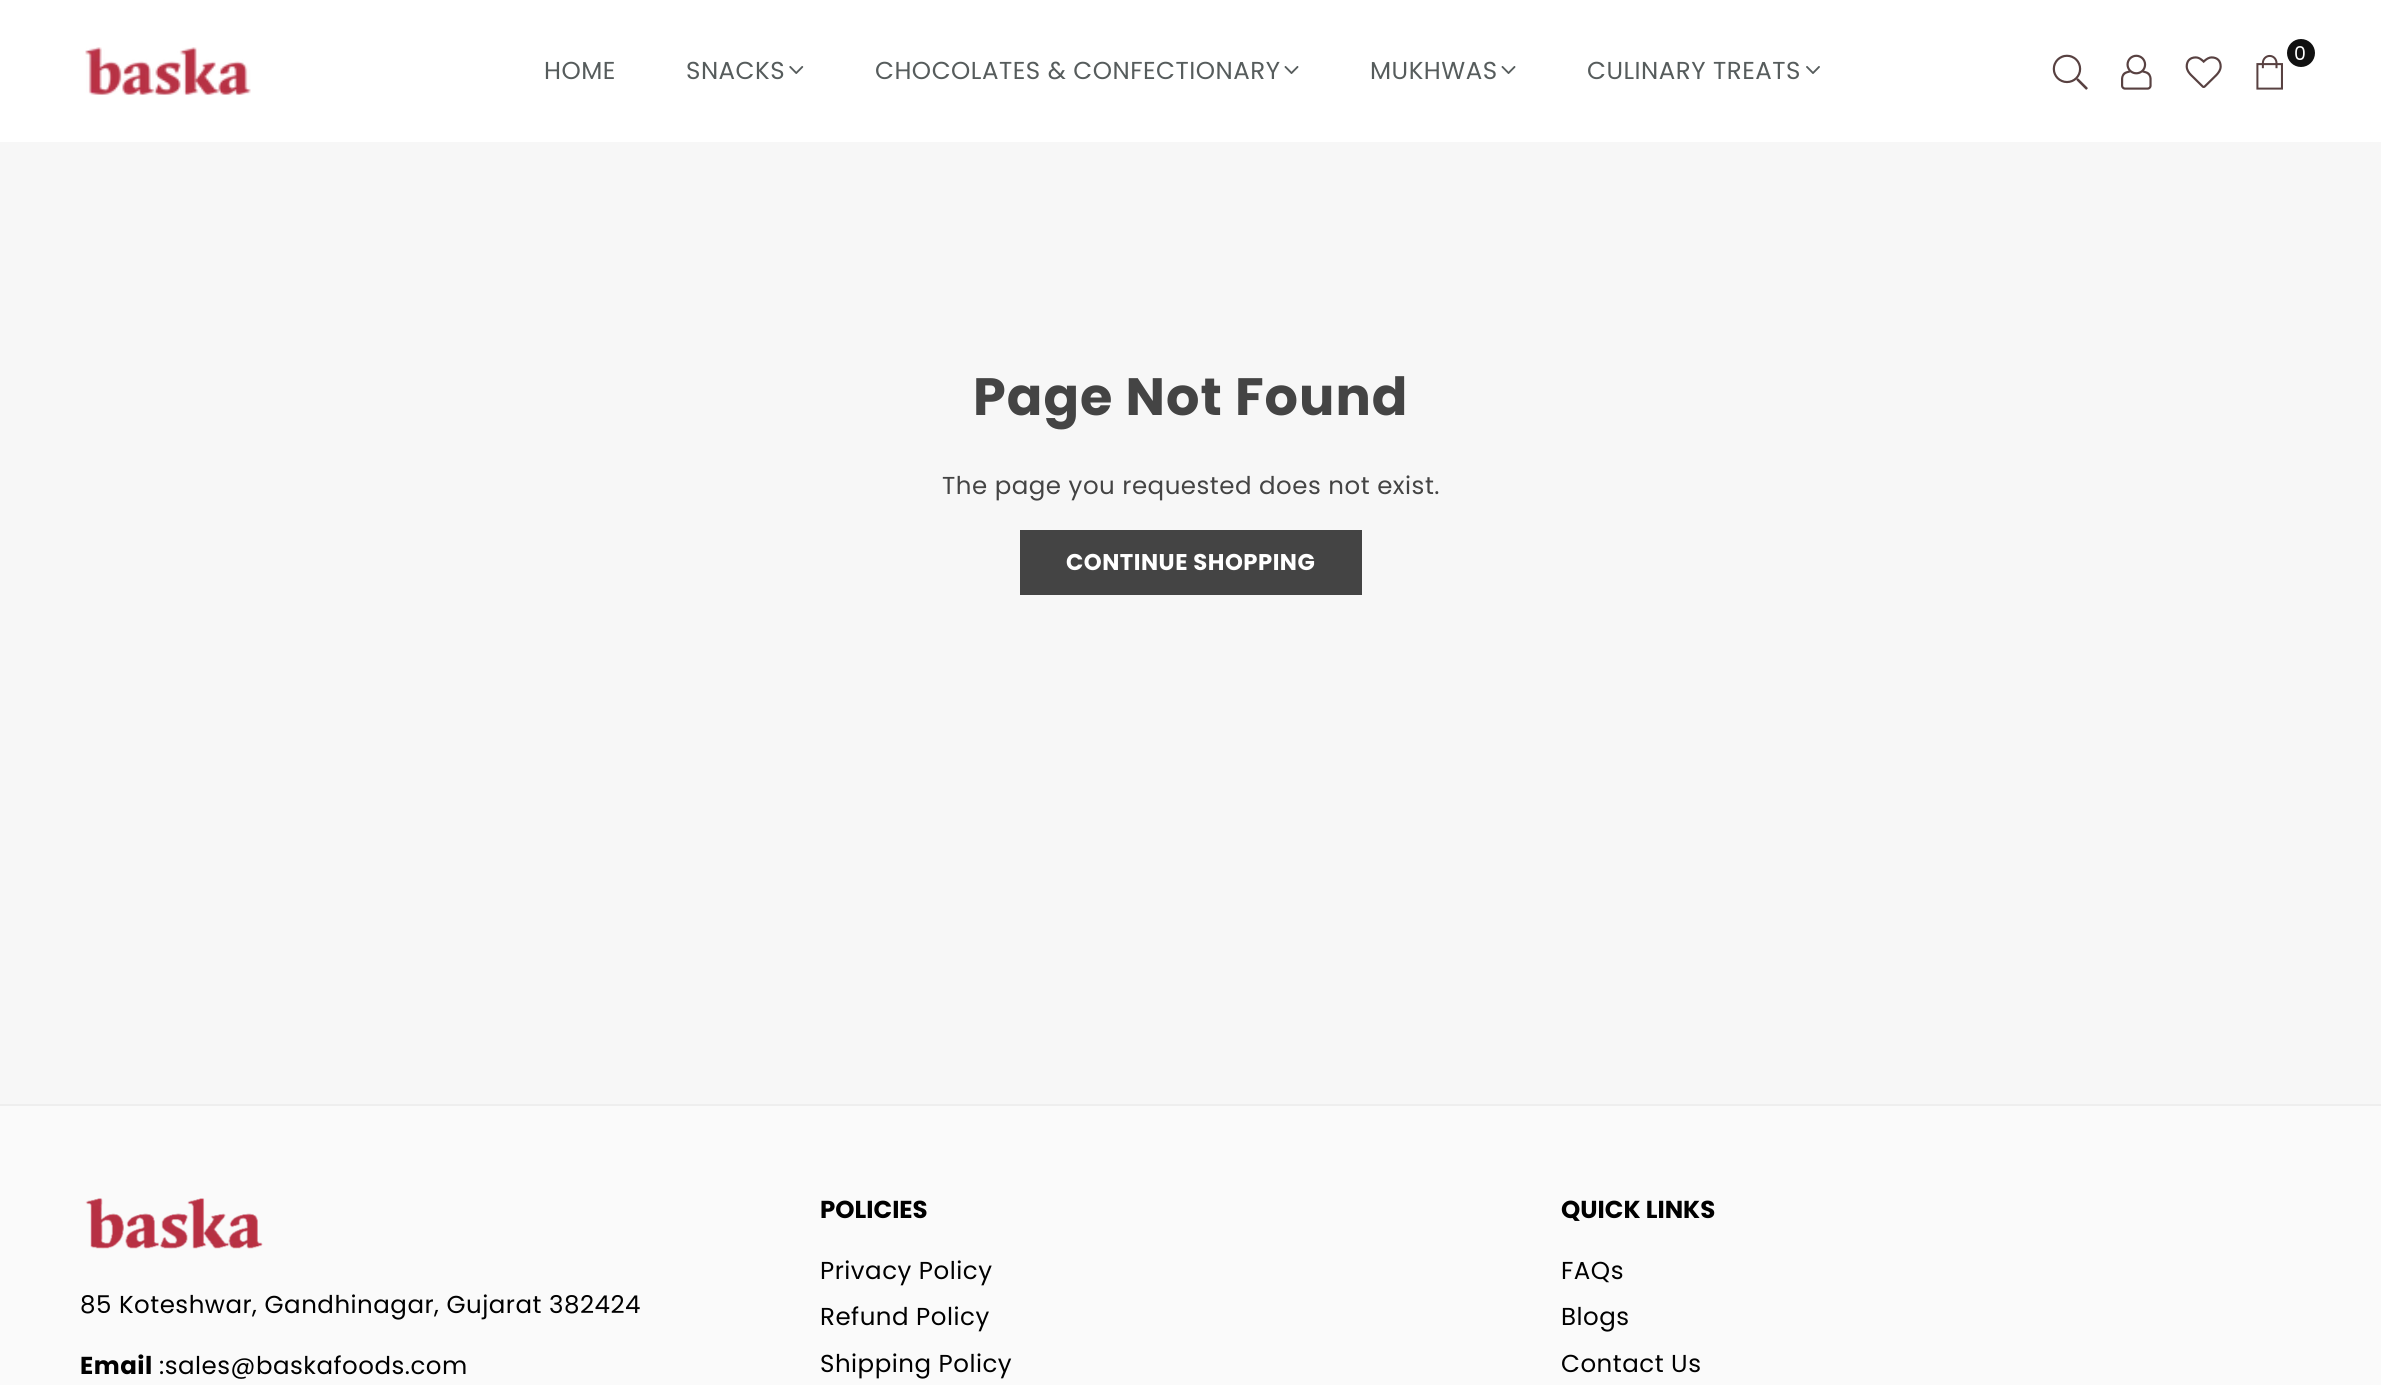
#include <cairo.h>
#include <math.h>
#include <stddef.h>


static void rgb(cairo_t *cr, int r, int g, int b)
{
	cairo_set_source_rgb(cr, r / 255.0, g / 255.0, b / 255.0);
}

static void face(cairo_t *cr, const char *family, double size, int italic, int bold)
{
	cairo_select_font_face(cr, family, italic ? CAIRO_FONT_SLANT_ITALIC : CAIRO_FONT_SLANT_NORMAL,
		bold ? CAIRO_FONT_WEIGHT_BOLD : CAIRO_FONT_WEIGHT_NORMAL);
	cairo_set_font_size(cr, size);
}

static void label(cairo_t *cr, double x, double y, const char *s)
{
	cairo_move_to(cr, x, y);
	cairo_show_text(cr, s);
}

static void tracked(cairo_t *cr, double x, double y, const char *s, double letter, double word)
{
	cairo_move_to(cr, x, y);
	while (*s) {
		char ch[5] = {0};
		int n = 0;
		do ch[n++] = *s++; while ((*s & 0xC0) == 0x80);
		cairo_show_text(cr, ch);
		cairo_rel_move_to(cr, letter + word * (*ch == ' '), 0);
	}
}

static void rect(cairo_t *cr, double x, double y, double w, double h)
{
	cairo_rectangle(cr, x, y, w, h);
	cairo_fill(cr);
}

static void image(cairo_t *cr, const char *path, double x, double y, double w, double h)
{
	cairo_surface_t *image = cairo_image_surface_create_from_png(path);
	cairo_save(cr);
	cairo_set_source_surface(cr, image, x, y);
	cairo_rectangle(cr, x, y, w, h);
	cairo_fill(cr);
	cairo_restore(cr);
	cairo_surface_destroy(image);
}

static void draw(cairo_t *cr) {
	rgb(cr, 247, 247, 247);
	cairo_paint(cr);
	rgb(cr, 255, 255, 255);
	rect(cr, 0, 0, 2381, 142);
	image(cr, "image0.png", 85, 47, 166, 48);
	face(cr, "Poppins", 24.5, 0, 0);
	rgb(cr, 86, 92, 92);
	tracked(cr, 544, 79, "HOME", 0.5, 0);
	tracked(cr, 686, 79, "SNACKS", 0.5, 0);
	image(cr, "image1.png", 789, 66, 15, 8);
	tracked(cr, 875, 79, "CHOCOLATES & CONFECTIONARY", 0.5, 0);
	image(cr, "image2.png", 1284, 66, 15, 8);
	tracked(cr, 1370, 79, "MUKHWAS", 0.5, 0);
	image(cr, "image2.png", 1501, 66, 15, 8);
	tracked(cr, 1587, 79, "CULINARY TREATS", 0.5, 0);
	image(cr, "image3.png", 1806, 66, 14, 8);
	rgb(cr, 17, 17, 17);
	cairo_arc(cr, 2301, 53, 14, 0, 2 * M_PI);
	cairo_fill(cr);
	face(cr, "Poppins", 19, 0, 0);
	rgb(cr, 255, 255, 255);
	tracked(cr, 2294, 60, "0", 0.5, 0);
	image(cr, "image4.png", 2256, 54, 27, 36);
	image(cr, "image5.png", 2052, 54, 36, 36);
	image(cr, "image6.png", 2121, 54, 31, 36);
	image(cr, "image7.png", 2185, 56, 37, 32);
	face(cr, "Poppins", 52.5, 0, 1);
	rgb(cr, 68, 68, 68);
	tracked(cr, 973, 415, "Page Not Found", 1, 0);
	face(cr, "Poppins", 24.5, 0, 0);
	tracked(cr, 942, 494, "The page you requested does not exist.", 0.5, 0);
	rect(cr, 1020, 530, 342, 65);
	face(cr, "Poppins", 22.75, 0, 1);
	rgb(cr, 255, 255, 255);
	tracked(cr, 1066, 570, "CONTINUE SHOPPING", 0.5, 0);
	rgb(cr, 250, 250, 250);
	rect(cr, 0, 1106, 2381, 279);
	rgb(cr, 238, 238, 238);
	rect(cr, 0, 1104, 2381, 2);
	image(cr, "image8.png", 85, 1198, 178, 51);
	face(cr, "Poppins", 24.5, 0, 0);
	rgb(cr, 0, 0, 0);
	tracked(cr, 80, 1313, "85 Koteshwar, Gandhinagar, Gujarat 382424", 0.5, 0);
	face(cr, "Poppins", 24.5, 0, 1);
	tracked(cr, 80, 1374, "Email", 0.5, 0);
	face(cr, "Poppins", 24.5, 0, 0);
	tracked(cr, 159, 1374, ":sales@baskafoods.com", 0.5, 0);
	face(cr, "Poppins", 24.5, 0, 1);
	label(cr, 820, 1218, "POLICIES");
	face(cr, "Poppins", 24.5, 0, 0);
	tracked(cr, 820, 1279, "Privacy Policy", 0.5, 0);
	tracked(cr, 820, 1325, "Refund Policy", 0.5, 0);
	tracked(cr, 820, 1372, "Shipping Policy", 0.5, 0);
	face(cr, "Poppins", 24.5, 0, 1);
	label(cr, 1561, 1218, "QUICK LINKS");
	face(cr, "Poppins", 24.5, 0, 0);
	tracked(cr, 1561, 1279, "FAQs", 0.5, 0);
	tracked(cr, 1561, 1325, "Blogs", 0.5, 0);
	tracked(cr, 1561, 1372, "Contact Us", 0.5, 0);
}

int main(void) {
	cairo_surface_t *surface = cairo_image_surface_create(CAIRO_FORMAT_RGB24, 2381, 1385);
	cairo_t *cr = cairo_create(surface);
	cairo_font_options_t *options = cairo_font_options_create();
	cairo_font_options_set_hint_metrics(options, CAIRO_HINT_METRICS_OFF);
	cairo_font_options_set_hint_style(options, CAIRO_HINT_STYLE_NONE);
	cairo_set_font_options(cr, options);
	cairo_set_miter_limit(cr, 4);
	draw(cr);
	cairo_surface_write_to_png(surface, "render.png");
	cairo_font_options_destroy(options);
	cairo_destroy(cr);
	cairo_surface_destroy(surface);
	return 0;
}
